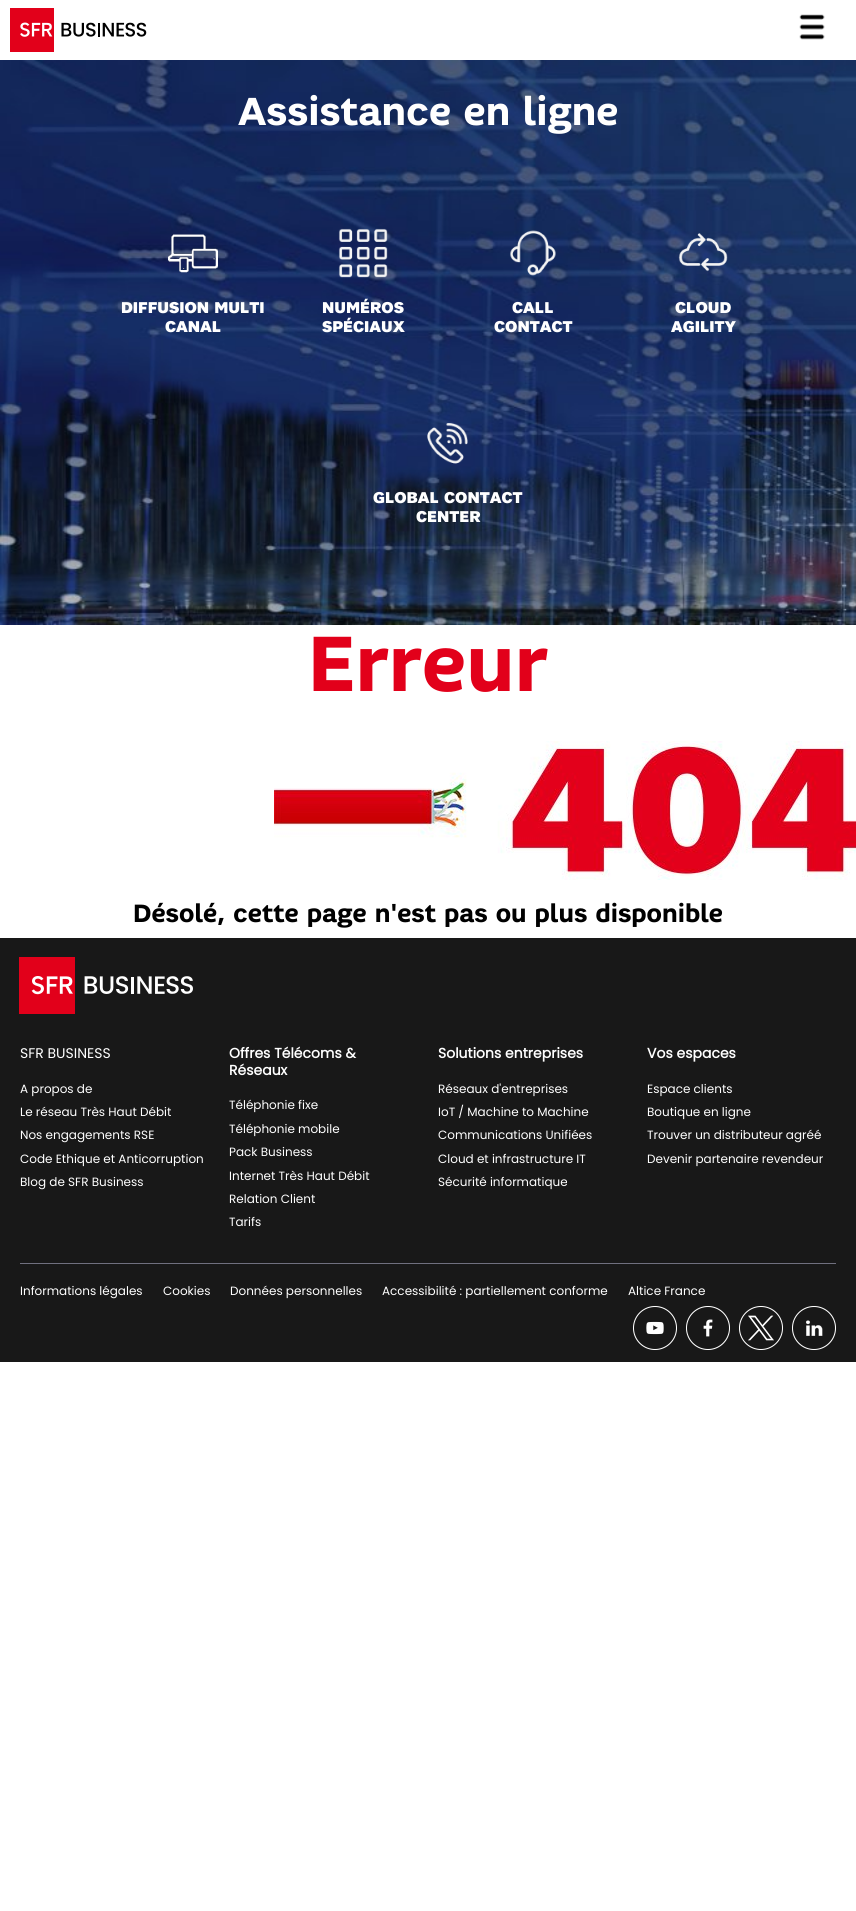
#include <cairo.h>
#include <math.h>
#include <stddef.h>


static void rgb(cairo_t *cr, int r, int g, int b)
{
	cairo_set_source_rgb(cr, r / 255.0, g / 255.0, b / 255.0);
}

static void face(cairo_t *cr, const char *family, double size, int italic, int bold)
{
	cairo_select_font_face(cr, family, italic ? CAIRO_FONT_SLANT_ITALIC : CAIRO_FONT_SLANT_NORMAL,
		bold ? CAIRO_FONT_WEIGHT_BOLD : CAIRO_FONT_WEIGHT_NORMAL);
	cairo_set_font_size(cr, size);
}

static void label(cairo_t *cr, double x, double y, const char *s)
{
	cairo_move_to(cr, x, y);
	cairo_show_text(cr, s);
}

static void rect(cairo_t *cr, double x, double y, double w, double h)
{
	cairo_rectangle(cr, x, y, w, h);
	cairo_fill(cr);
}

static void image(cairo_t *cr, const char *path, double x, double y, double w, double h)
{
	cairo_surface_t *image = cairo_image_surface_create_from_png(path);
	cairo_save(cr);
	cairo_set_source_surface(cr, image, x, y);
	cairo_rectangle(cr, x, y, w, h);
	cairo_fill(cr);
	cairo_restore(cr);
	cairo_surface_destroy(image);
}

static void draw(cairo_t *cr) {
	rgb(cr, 255, 255, 255);
	cairo_paint(cr);
	image(cr, "image0.png", 10, 8, 137, 44);
	image(cr, "image1.png", 799, 14, 26, 26);
	image(cr, "image2.png", 0, 60, 856, 565);
	face(cr, "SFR", 40, 0, 1);
	rgb(cr, 255, 255, 255);
	label(cr, 238, 125, "Assistance en ligne");
	image(cr, "image3.png", 168, 234, 50, 39);
	face(cr, "SFR Black", 16, 0, 0);
	label(cr, 121, 313, "DIFFUSION MULTI");
	label(cr, 165, 332, "CANAL");
	image(cr, "image4.png", 338, 228, 50, 50);
	label(cr, 322, 313, "NUMÉROS");
	label(cr, 322, 332, "SPÉCIAUX");
	image(cr, "image5.png", 510, 230, 46, 46);
	label(cr, 512, 313, "CALL");
	label(cr, 494, 332, "CONTACT");
	image(cr, "image6.png", 678, 233, 50, 39);
	label(cr, 675, 313, "CLOUD");
	label(cr, 671, 332, "AGILITY");
	image(cr, "image7.png", 427, 423, 41, 41);
	label(cr, 373, 503, "GLOBAL CONTACT");
	label(cr, 416, 522, "CENTER");
	face(cr, "SFR", 80, 0, 1);
	rgb(cr, 226, 0, 26);
	label(cr, 308, 691, "Erreur");
	image(cr, "image8.png", 274, 741, 582, 139);
	face(cr, "SFR", 25.6, 0, 1);
	rgb(cr, 0, 0, 0);
	label(cr, 133, 922, "Désolé, cette page n'est pas ou plus disponible");
	rgb(cr, 24, 24, 24);
	rect(cr, 0, 938, 856, 424);
	image(cr, "image9.png", 19, 957, 174, 57);
	face(cr, "Poppins", 14, 0, 0);
	rgb(cr, 255, 255, 255);
	label(cr, 20, 1058, "SFR BUSINESS");
	face(cr, "Poppins", 12, 0, 0);
	label(cr, 20, 1093, "A propos de");
	label(cr, 20, 1116, "Le réseau Très Haut Débit");
	label(cr, 20, 1139, "Nos engagements RSE");
	label(cr, 20, 1163, "Code Ethique et Anticorruption");
	label(cr, 20, 1186, "Blog de SFR Business");
	face(cr, "Poppins", 14, 0, 1);
	label(cr, 229, 1058, "Offres Télécoms &");
	label(cr, 229, 1075, "Réseaux");
	face(cr, "Poppins", 12, 0, 0);
	label(cr, 229, 1109, "Téléphonie fixe");
	label(cr, 229, 1133, "Téléphonie mobile");
	label(cr, 229, 1156, "Pack Business");
	label(cr, 229, 1180, "Internet Très Haut Débit");
	label(cr, 229, 1203, "Relation Client");
	label(cr, 229, 1226, "Tarifs");
	face(cr, "Poppins", 14, 0, 1);
	label(cr, 438, 1058, "Solutions entreprises");
	face(cr, "Poppins", 12, 0, 0);
	label(cr, 438, 1093, "Réseaux d'entreprises");
	label(cr, 438, 1116, "IoT / Machine to Machine");
	label(cr, 438, 1139, "Communications Unifiées");
	label(cr, 438, 1163, "Cloud et infrastructure IT");
	label(cr, 438, 1186, "Sécurité informatique");
	face(cr, "Poppins", 14, 0, 1);
	label(cr, 647, 1058, "Vos espaces");
	face(cr, "Poppins", 12, 0, 0);
	label(cr, 647, 1093, "Espace clients");
	label(cr, 647, 1116, "Boutique en ligne");
	label(cr, 647, 1139, "Trouver un distributeur agréé");
	label(cr, 647, 1163, "Devenir partenaire revendeur");
	rgb(cr, 112, 112, 127);
	rect(cr, 20, 1263, 816, 1);
	rgb(cr, 255, 255, 255);
	label(cr, 20, 1295, "Informations légales");
	label(cr, 163, 1295, "Cookies");
	label(cr, 230, 1295, "Données personnelles");
	label(cr, 382, 1295, "Accessibilité : partiellement conforme");
	label(cr, 628, 1295, "Altice France");
	image(cr, "image10.png", 633, 1306, 44, 44);
	image(cr, "image11.png", 686, 1306, 44, 44);
	image(cr, "image12.png", 739, 1306, 44, 44);
	image(cr, "image13.png", 792, 1306, 44, 44);
}

int main(void) {
	cairo_surface_t *surface = cairo_image_surface_create(CAIRO_FORMAT_RGB24, 856, 1911);
	cairo_t *cr = cairo_create(surface);
	cairo_font_options_t *options = cairo_font_options_create();
	cairo_font_options_set_hint_metrics(options, CAIRO_HINT_METRICS_OFF);
	cairo_font_options_set_hint_style(options, CAIRO_HINT_STYLE_NONE);
	cairo_set_font_options(cr, options);
	cairo_set_miter_limit(cr, 4);
	draw(cr);
	cairo_surface_write_to_png(surface, "render.png");
	cairo_font_options_destroy(options);
	cairo_destroy(cr);
	cairo_surface_destroy(surface);
	return 0;
}
